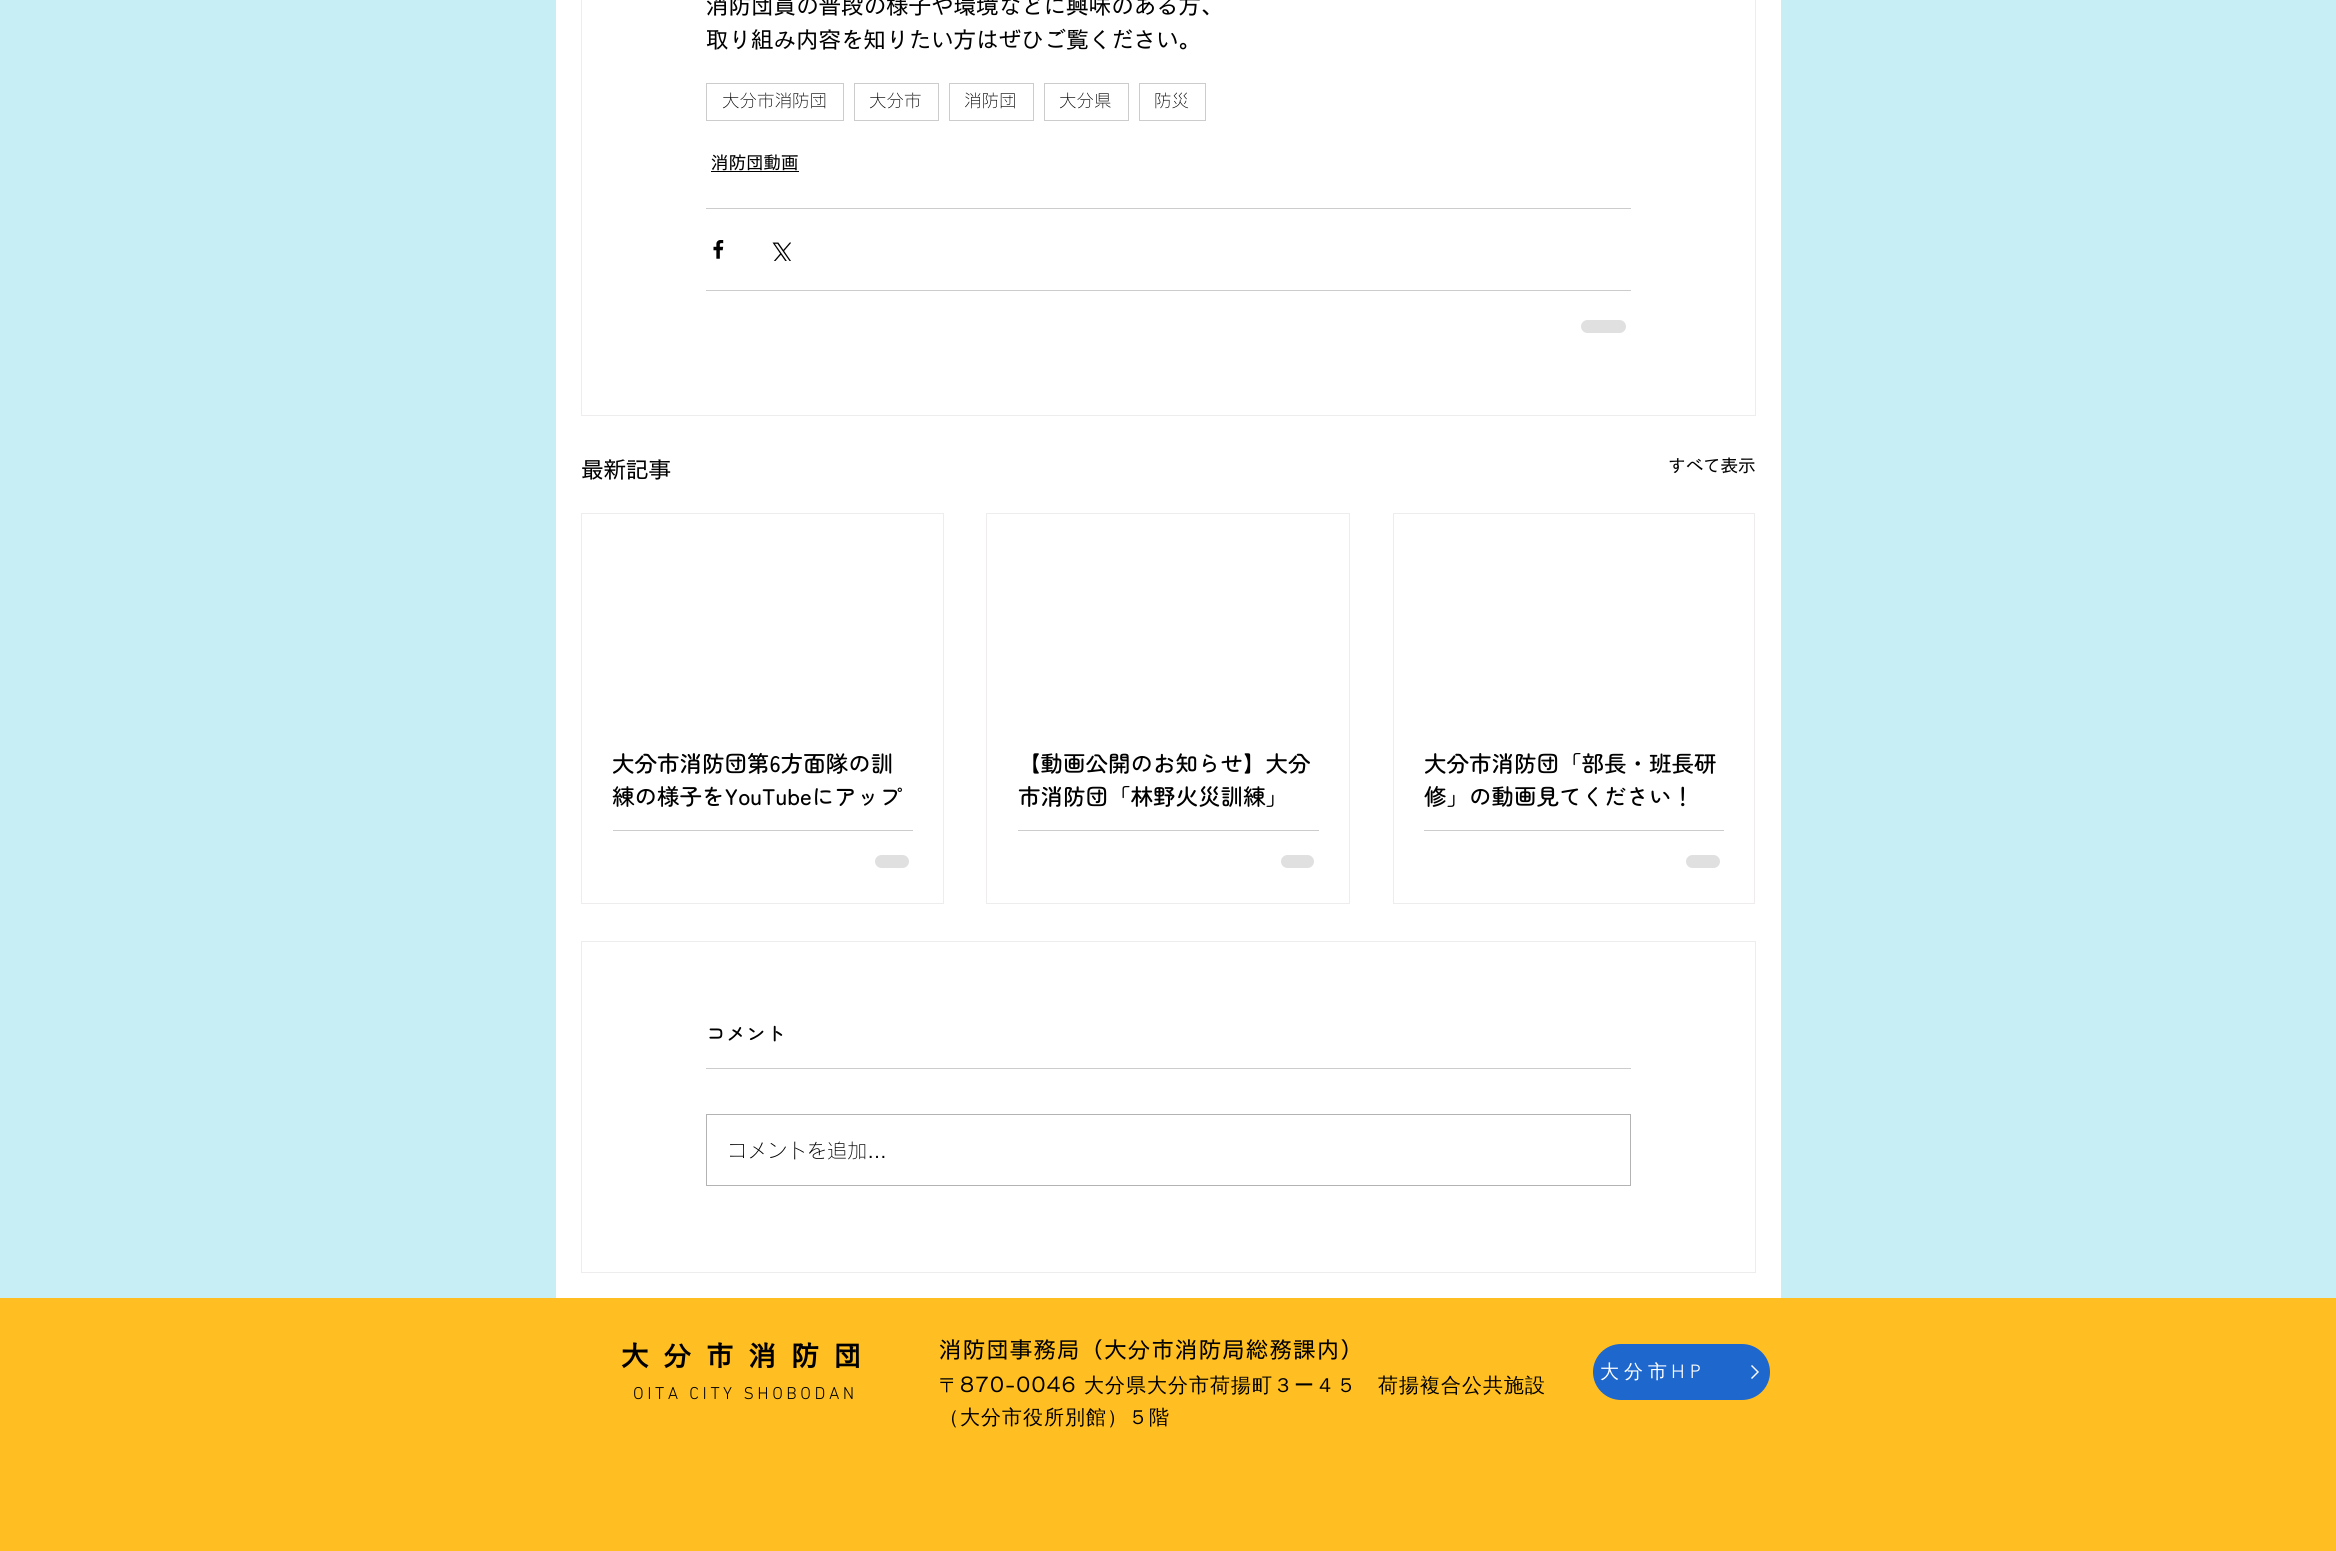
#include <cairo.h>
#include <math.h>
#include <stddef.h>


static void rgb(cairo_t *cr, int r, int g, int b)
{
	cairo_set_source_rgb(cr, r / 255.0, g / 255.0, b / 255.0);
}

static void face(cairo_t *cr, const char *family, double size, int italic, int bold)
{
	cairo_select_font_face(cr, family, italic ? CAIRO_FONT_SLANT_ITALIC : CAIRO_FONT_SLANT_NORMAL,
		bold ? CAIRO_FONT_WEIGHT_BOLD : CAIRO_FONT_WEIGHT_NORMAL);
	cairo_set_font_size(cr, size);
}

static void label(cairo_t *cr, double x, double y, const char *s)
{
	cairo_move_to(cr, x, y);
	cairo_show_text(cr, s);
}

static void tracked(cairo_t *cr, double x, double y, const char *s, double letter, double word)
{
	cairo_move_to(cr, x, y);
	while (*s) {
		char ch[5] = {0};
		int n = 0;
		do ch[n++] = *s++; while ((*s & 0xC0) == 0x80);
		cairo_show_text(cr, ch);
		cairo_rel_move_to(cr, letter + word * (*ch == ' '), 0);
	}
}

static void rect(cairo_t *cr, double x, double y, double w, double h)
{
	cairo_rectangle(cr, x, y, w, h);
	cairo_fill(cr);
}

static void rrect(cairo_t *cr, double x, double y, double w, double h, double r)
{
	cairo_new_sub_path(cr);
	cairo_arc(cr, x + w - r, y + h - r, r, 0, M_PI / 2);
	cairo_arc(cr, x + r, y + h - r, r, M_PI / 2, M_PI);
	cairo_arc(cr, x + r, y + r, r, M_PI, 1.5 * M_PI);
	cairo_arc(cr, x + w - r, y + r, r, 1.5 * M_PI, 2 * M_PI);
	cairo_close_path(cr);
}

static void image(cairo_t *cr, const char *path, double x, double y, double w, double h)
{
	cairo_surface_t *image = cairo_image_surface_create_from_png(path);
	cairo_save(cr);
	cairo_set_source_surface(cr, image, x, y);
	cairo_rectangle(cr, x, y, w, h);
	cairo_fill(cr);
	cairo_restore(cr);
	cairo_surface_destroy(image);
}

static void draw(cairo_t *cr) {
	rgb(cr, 200, 238, 245);
	cairo_paint(cr);
	rgb(cr, 255, 255, 255);
	rect(cr, 556, 0, 1225, 1298);
	cairo_rectangle(cr, 581.5, -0.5, 1174, 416);
	rgb(cr, 238, 236, 236);
	cairo_set_line_width(cr, 1);
	cairo_stroke(cr);
	face(cr, "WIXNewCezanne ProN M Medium", 22.5, 0, 0);
	rgb(cr, 0, 0, 0);
	label(cr, 706, 14, "消防団員の普段の様子や環境などに興味のある方、");
	label(cr, 706, 48, "取り組み内容を知りたい方はぜひご覧ください。");
	cairo_rectangle(cr, 706.5, 83.5, 137, 37);
	rgb(cr, 204, 204, 204);
	cairo_stroke(cr);
	face(cr, "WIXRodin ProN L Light", 17.5, 0, 0);
	rgb(cr, 0, 0, 0);
	label(cr, 722, 107, "大分市消防団");
	cairo_rectangle(cr, 854.5, 83.5, 84, 37);
	rgb(cr, 204, 204, 204);
	cairo_stroke(cr);
	rgb(cr, 0, 0, 0);
	label(cr, 869, 107, "大分市");
	cairo_rectangle(cr, 949.5, 83.5, 84, 37);
	rgb(cr, 204, 204, 204);
	cairo_stroke(cr);
	rgb(cr, 0, 0, 0);
	label(cr, 964, 107, "消防団");
	cairo_rectangle(cr, 1044.5, 83.5, 84, 37);
	rgb(cr, 204, 204, 204);
	cairo_stroke(cr);
	rgb(cr, 0, 0, 0);
	label(cr, 1059, 107, "大分県");
	cairo_rectangle(cr, 1139.5, 83.5, 66, 37);
	rgb(cr, 204, 204, 204);
	cairo_stroke(cr);
	rgb(cr, 0, 0, 0);
	label(cr, 1154, 107, "防災");
	face(cr, "WIXNewCezanne ProN M Medium", 17.5, 0, 0);
	label(cr, 711, 169, "消防団動画");
	rect(cr, 711, 171, 88, 1);
	rgb(cr, 204, 204, 204);
	rect(cr, 706, 208, 925, 1);
	image(cr, "image0.png", 713, 240, 11, 19);
	image(cr, "image1.png", 772, 242, 19, 19);
	rect(cr, 706, 290, 925, 1);
	rgb(cr, 224, 224, 224);
	rrect(cr, 1581, 320, 45, 13, 6.5);
	cairo_fill(cr);
	face(cr, "WIXNewCezanne ProN M Medium", 22.5, 0, 0);
	rgb(cr, 0, 0, 0);
	label(cr, 581, 478, "最新記事");
	face(cr, "WIXNewCezanne ProN M Medium", 17.5, 0, 0);
	label(cr, 1668, 472, "すべて表示");
	cairo_rectangle(cr, 581.5, 513.5, 362, 390);
	rgb(cr, 238, 236, 236);
	cairo_stroke(cr);
	face(cr, "Zen Maru Gothic Medium", 22.5, 0, 0);
	rgb(cr, 0, 0, 0);
	label(cr, 612, 772, "大分市消防団第6方面隊の訓");
	label(cr, 612, 805, "練の様子をYouTubeにアップ");
	rgb(cr, 204, 204, 204);
	rect(cr, 613, 830, 300, 1);
	rgb(cr, 224, 224, 224);
	rrect(cr, 875, 855, 34, 13, 6.5);
	cairo_fill(cr);
	cairo_rectangle(cr, 986.5, 513.5, 363, 390);
	rgb(cr, 238, 236, 236);
	cairo_stroke(cr);
	rgb(cr, 0, 0, 0);
	label(cr, 1018, 772, "【動画公開のお知らせ】大分");
	label(cr, 1018, 805, "市消防団「林野火災訓練」");
	rgb(cr, 204, 204, 204);
	rect(cr, 1018, 830, 301, 1);
	rgb(cr, 224, 224, 224);
	rrect(cr, 1281, 855, 33, 13, 6.5);
	cairo_fill(cr);
	cairo_rectangle(cr, 1393.5, 513.5, 361, 390);
	rgb(cr, 238, 236, 236);
	cairo_stroke(cr);
	rgb(cr, 0, 0, 0);
	label(cr, 1424, 772, "大分市消防団「部長・班長研");
	label(cr, 1424, 805, "修」の動画見てください！");
	rgb(cr, 204, 204, 204);
	rect(cr, 1424, 830, 300, 1);
	rgb(cr, 224, 224, 224);
	rrect(cr, 1686, 855, 34, 13, 6.5);
	cairo_fill(cr);
	cairo_rectangle(cr, 581.5, 941.5, 1174, 331);
	rgb(cr, 238, 236, 236);
	cairo_stroke(cr);
	face(cr, "Zen Maru Gothic Medium", 20, 0, 0);
	rgb(cr, 0, 0, 0);
	label(cr, 706, 1041, "コメント");
	rgb(cr, 204, 204, 204);
	rect(cr, 706, 1068, 925, 1);
	cairo_rectangle(cr, 706.5, 1114.5, 924, 71);
	rgb(cr, 179, 179, 179);
	cairo_stroke(cr);
	face(cr, "WIXRodin ProN L Light", 20, 0, 0);
	rgb(cr, 0, 0, 0);
	label(cr, 727, 1158, "コメントを追加");
	face(cr, "Liberation Sans", 20, 0, 0);
	label(cr, 867, 1158, "…");
	rgb(cr, 255, 191, 35);
	rect(cr, 0, 1298, 2336, 253);
	face(cr, "WIXNewCezanne ProN M", 27.5, 0, 1);
	rgb(cr, 0, 0, 0);
	tracked(cr, 621, 1366, "大分市消防団", 15, 0);
	face(cr, "WIXNewCezanne ProN M Medium", 22.5, 0, 0);
	tracked(cr, 939, 1358, "消防団事務局（大分市消防局総務課内）", 1.1, 0);
	rgb(cr, 29, 103, 205);
	rrect(cr, 1593, 1344, 177, 56, 28);
	cairo_fill(cr);
	face(cr, "WenQuanYi Zen Hei Medium", 19, 0, 0);
	rgb(cr, 255, 255, 255);
	tracked(cr, 1600, 1378, "大分市", 5, 0);
	face(cr, "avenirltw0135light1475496 Light", 19, 0, 0);
	tracked(cr, 1671, 1378, "HP", 5, 0);
	cairo_new_path(cr);
	cairo_move_to(cr, 1752, 1365);
	cairo_line_to(cr, 1751, 1366);
	cairo_line_to(cr, 1757, 1372);
	cairo_line_to(cr, 1717, 1372);
	cairo_line_to(cr, 1757, 1372);
	cairo_line_to(cr, 1751, 1378);
	cairo_line_to(cr, 1752, 1379);
	cairo_line_to(cr, 1759, 1372);
	cairo_close_path(cr);
	cairo_fill(cr);
	face(cr, "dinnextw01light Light", 17.5, 0, 0);
	rgb(cr, 0, 0, 0);
	tracked(cr, 633, 1399, "OITA CITY SHOBODAN", 3.5, 0);
	face(cr, "WenQuanYi Zen Hei Medium", 20, 0, 0);
	tracked(cr, 939, 1392, "〒", 1, 0);
	face(cr, "WIXNewCezanne ProN M Medium", 20, 0, 0);
	tracked(cr, 960, 1392, "870-0046", 1, 0);
	face(cr, "WenQuanYi Zen Hei Medium", 20, 0, 0);
	tracked(cr, 1084, 1392, "大分県大分市荷揚町３ー４５　荷揚複合公共施設", 1, 0);
	tracked(cr, 939, 1424, "（大分市役所別館）５階", 1, 0);
}

int main(void) {
	cairo_surface_t *surface = cairo_image_surface_create(CAIRO_FORMAT_RGB24, 2336, 1551);
	cairo_t *cr = cairo_create(surface);
	cairo_font_options_t *options = cairo_font_options_create();
	cairo_font_options_set_hint_metrics(options, CAIRO_HINT_METRICS_OFF);
	cairo_font_options_set_hint_style(options, CAIRO_HINT_STYLE_NONE);
	cairo_set_font_options(cr, options);
	cairo_set_miter_limit(cr, 4);
	draw(cr);
	cairo_surface_write_to_png(surface, "render.png");
	cairo_font_options_destroy(options);
	cairo_destroy(cr);
	cairo_surface_destroy(surface);
	return 0;
}
